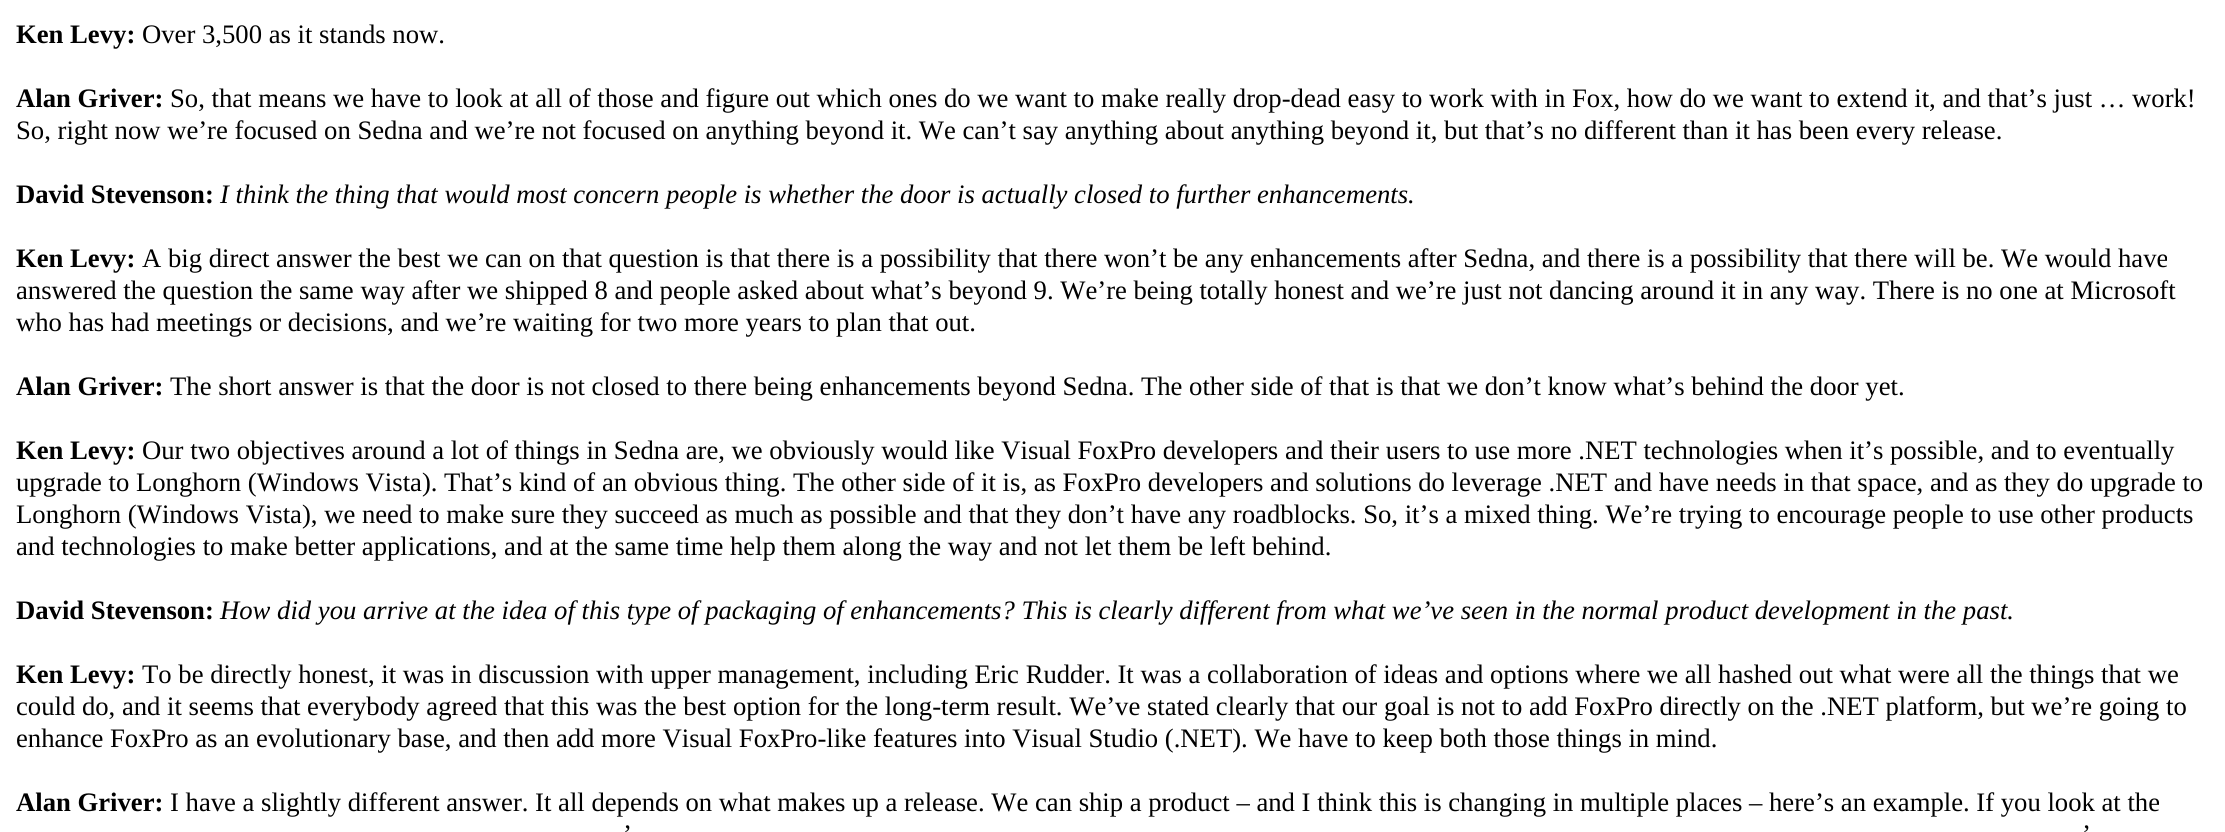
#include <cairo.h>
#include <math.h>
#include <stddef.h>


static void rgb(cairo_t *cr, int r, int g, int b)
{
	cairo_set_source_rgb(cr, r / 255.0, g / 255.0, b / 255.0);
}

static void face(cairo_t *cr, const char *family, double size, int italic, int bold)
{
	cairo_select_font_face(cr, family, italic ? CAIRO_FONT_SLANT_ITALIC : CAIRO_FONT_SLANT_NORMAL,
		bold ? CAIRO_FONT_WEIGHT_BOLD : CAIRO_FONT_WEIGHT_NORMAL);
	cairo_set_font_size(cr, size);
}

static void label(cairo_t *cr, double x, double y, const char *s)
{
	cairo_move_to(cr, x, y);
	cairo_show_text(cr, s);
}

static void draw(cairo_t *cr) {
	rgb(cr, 255, 255, 255);
	cairo_paint(cr);
	face(cr, "Liberation Serif", 26.67, 0, 1);
	rgb(cr, 0, 0, 0);
	label(cr, 16, 43, "Ken Levy:");
	face(cr, "Liberation Serif", 26.67, 0, 0);
	label(cr, 142, 43, "Over 3,500 as it stands now.");
	face(cr, "Liberation Serif", 26.67, 0, 1);
	label(cr, 16, 107, "Alan Griver:");
	face(cr, "Liberation Serif", 26.67, 0, 0);
	label(cr, 170, 107, "So, that means we have to look at all of those and figure out which ones do we want to make really drop-dead easy to work with in Fox, how do we want to extend it, and that’s just … work!");
	label(cr, 16, 139, "So, right now we’re focused on Sedna and we’re not focused on anything beyond it. We can’t say anything about anything beyond it, but that’s no different than it has been every release.");
	face(cr, "Liberation Serif", 26.67, 0, 1);
	label(cr, 16, 203, "David Stevenson:");
	face(cr, "Liberation Serif", 26.67, 1, 0);
	label(cr, 220, 203, "I think the thing that would most concern people is whether the door is actually closed to further enhancements.");
	face(cr, "Liberation Serif", 26.67, 0, 1);
	label(cr, 16, 267, "Ken Levy:");
	face(cr, "Liberation Serif", 26.67, 0, 0);
	label(cr, 142, 267, "A big direct answer the best we can on that question is that there is a possibility that there won’t be any enhancements after Sedna, and there is a possibility that there will be. We would have");
	label(cr, 16, 299, "answered the question the same way after we shipped 8 and people asked about what’s beyond 9. We’re being totally honest and we’re just not dancing around it in any way. There is no one at Microsoft");
	label(cr, 16, 331, "who has had meetings or decisions, and we’re waiting for two more years to plan that out.");
	face(cr, "Liberation Serif", 26.67, 0, 1);
	label(cr, 16, 395, "Alan Griver:");
	face(cr, "Liberation Serif", 26.67, 0, 0);
	label(cr, 170, 395, "The short answer is that the door is not closed to there being enhancements beyond Sedna. The other side of that is that we don’t know what’s behind the door yet.");
	face(cr, "Liberation Serif", 26.67, 0, 1);
	label(cr, 16, 459, "Ken Levy:");
	face(cr, "Liberation Serif", 26.67, 0, 0);
	label(cr, 142, 459, "Our two objectives around a lot of things in Sedna are, we obviously would like Visual FoxPro developers and their users to use more .NET technologies when it’s possible, and to eventually");
	label(cr, 16, 491, "upgrade to Longhorn (Windows Vista). That’s kind of an obvious thing. The other side of it is, as FoxPro developers and solutions do leverage .NET and have needs in that space, and as they do upgrade to");
	label(cr, 16, 523, "Longhorn (Windows Vista), we need to make sure they succeed as much as possible and that they don’t have any roadblocks. So, it’s a mixed thing. We’re trying to encourage people to use other products");
	label(cr, 16, 555, "and technologies to make better applications, and at the same time help them along the way and not let them be left behind.");
	face(cr, "Liberation Serif", 26.67, 0, 1);
	label(cr, 16, 619, "David Stevenson:");
	face(cr, "Liberation Serif", 26.67, 1, 0);
	label(cr, 220, 619, "How did you arrive at the idea of this type of packaging of enhancements? This is clearly different from what we’ve seen in the normal product development in the past.");
	face(cr, "Liberation Serif", 26.67, 0, 1);
	label(cr, 16, 683, "Ken Levy:");
	face(cr, "Liberation Serif", 26.67, 0, 0);
	label(cr, 142, 683, "To be directly honest, it was in discussion with upper management, including Eric Rudder. It was a collaboration of ideas and options where we all hashed out what were all the things that we");
	label(cr, 16, 715, "could do, and it seems that everybody agreed that this was the best option for the long-term result. We’ve stated clearly that our goal is not to add FoxPro directly on the .NET platform, but we’re going to");
	label(cr, 16, 747, "enhance FoxPro as an evolutionary base, and then add more Visual FoxPro-like features into Visual Studio (.NET). We have to keep both those things in mind.");
	face(cr, "Liberation Serif", 26.67, 0, 1);
	label(cr, 16, 811, "Alan Griver:");
	face(cr, "Liberation Serif", 26.67, 0, 0);
	label(cr, 170, 811, "I have a slightly different answer. It all depends on what makes up a release. We can ship a product – and I think this is changing in multiple places – here’s an example. If you look at the");
	label(cr, 623, 843, "’");
	label(cr, 2082, 843, "’");
}

int main(void) {
	cairo_surface_t *surface = cairo_image_surface_create(CAIRO_FORMAT_RGB24, 2225, 832);
	cairo_t *cr = cairo_create(surface);
	cairo_font_options_t *options = cairo_font_options_create();
	cairo_font_options_set_hint_metrics(options, CAIRO_HINT_METRICS_OFF);
	cairo_font_options_set_hint_style(options, CAIRO_HINT_STYLE_NONE);
	cairo_set_font_options(cr, options);
	cairo_set_miter_limit(cr, 4);
	draw(cr);
	cairo_surface_write_to_png(surface, "render.png");
	cairo_font_options_destroy(options);
	cairo_destroy(cr);
	cairo_surface_destroy(surface);
	return 0;
}
